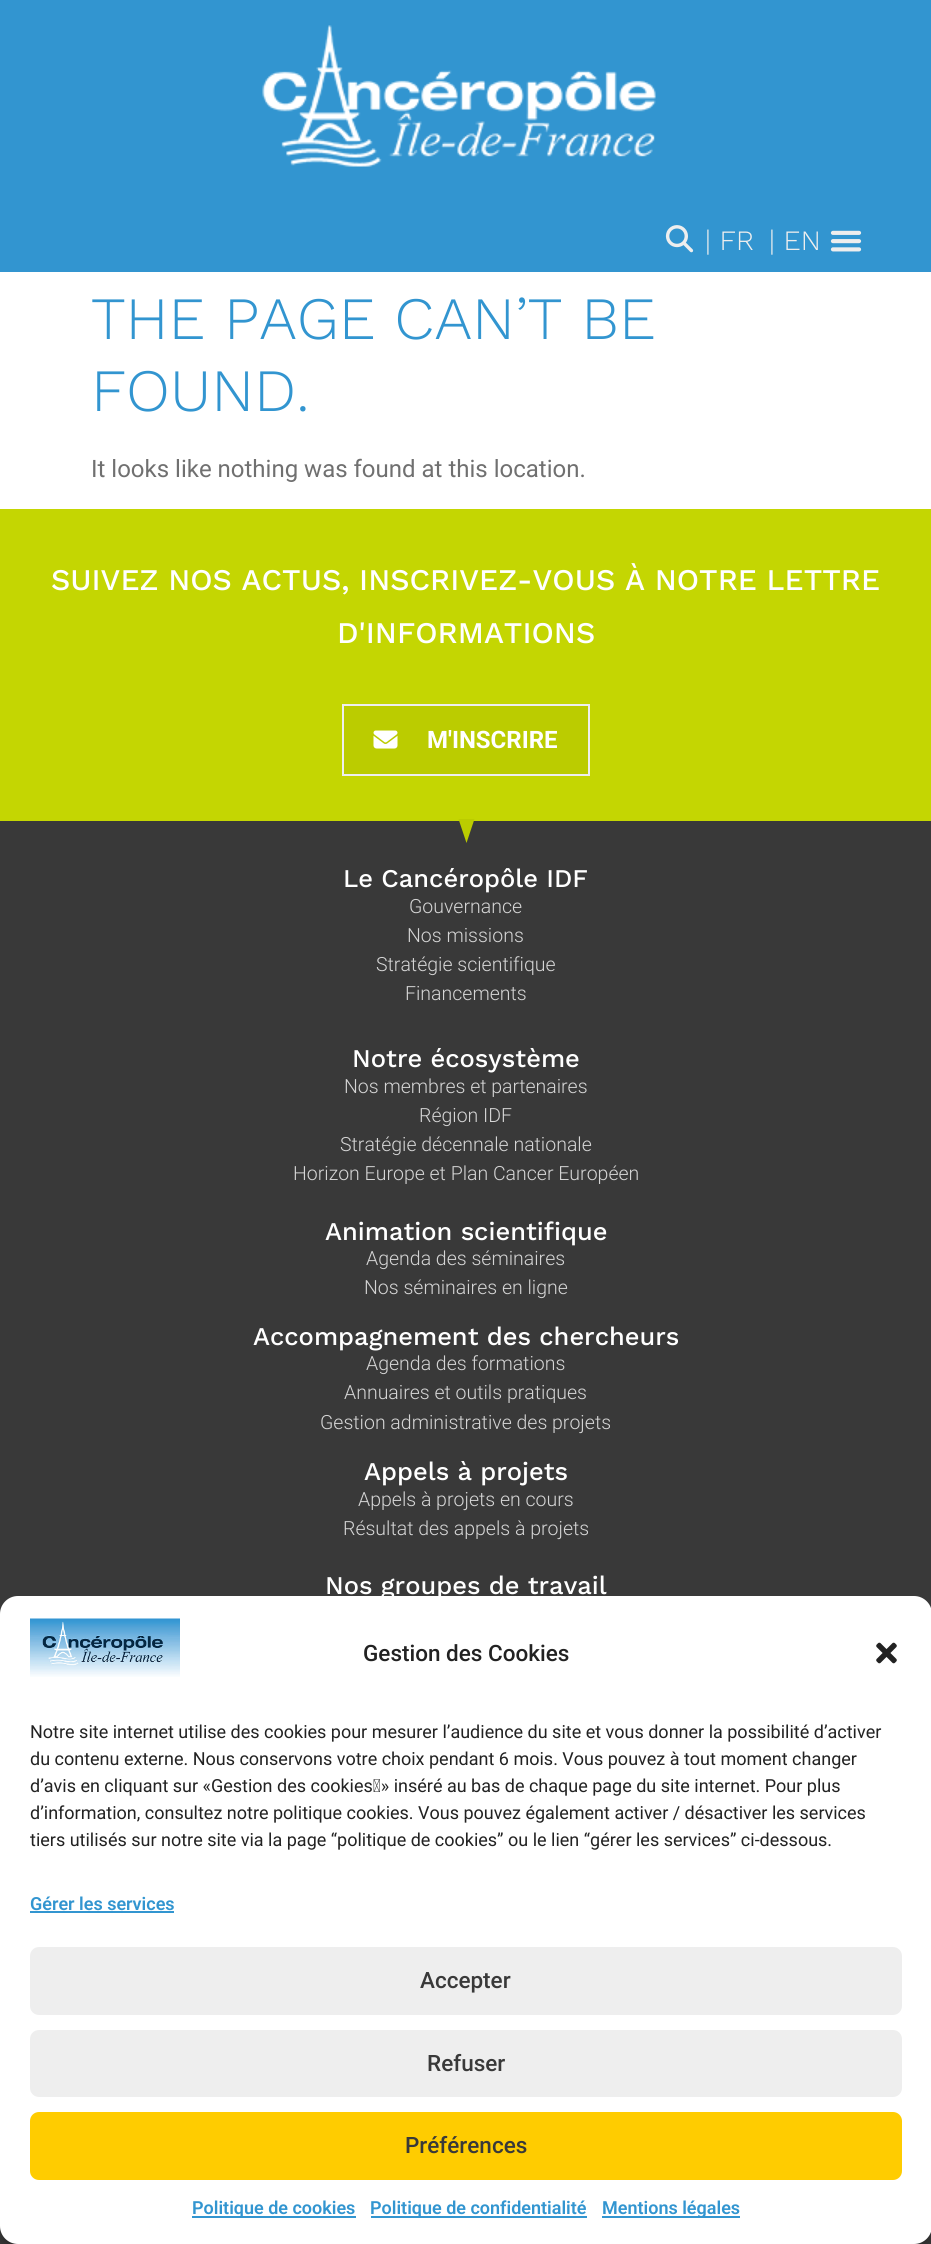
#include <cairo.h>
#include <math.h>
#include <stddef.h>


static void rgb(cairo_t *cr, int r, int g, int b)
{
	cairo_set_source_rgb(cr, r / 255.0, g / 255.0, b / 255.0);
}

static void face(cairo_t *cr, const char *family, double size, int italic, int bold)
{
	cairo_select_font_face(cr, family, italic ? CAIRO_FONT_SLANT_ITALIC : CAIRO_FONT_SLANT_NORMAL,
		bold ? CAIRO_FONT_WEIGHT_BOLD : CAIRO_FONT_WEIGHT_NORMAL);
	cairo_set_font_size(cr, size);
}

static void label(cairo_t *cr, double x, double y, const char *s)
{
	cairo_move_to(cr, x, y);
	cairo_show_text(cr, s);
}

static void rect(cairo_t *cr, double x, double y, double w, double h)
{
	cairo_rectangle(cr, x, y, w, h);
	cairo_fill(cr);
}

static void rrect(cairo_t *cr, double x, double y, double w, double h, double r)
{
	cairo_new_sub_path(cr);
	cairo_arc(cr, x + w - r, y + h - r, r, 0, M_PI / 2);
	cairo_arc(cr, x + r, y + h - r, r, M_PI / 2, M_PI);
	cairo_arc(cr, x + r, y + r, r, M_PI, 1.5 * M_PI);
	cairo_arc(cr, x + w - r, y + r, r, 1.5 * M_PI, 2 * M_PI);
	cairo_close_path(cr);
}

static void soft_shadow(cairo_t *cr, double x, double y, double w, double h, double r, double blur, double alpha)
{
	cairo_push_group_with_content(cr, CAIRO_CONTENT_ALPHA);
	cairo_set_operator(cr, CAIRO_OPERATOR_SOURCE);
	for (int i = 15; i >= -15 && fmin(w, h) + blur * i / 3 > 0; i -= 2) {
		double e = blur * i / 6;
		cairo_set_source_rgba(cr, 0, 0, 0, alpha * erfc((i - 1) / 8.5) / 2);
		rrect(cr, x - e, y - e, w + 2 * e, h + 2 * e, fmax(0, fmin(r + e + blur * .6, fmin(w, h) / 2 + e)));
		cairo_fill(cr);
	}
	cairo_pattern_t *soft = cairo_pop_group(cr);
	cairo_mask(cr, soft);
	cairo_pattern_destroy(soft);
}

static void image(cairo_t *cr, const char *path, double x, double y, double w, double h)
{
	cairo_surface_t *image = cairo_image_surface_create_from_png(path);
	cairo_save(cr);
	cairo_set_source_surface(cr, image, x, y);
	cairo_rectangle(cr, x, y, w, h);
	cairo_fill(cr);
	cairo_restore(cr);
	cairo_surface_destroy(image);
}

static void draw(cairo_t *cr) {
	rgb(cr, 255, 255, 255);
	cairo_paint(cr);
	rgb(cr, 50, 149, 208);
	rect(cr, 0, 0, 931, 272);
	image(cr, "image0.png", 262, 25, 394, 142);
	image(cr, "image1.png", 665, 225, 29, 28);
	face(cr, "Work Sans Light", 28, 0, 0);
	rgb(cr, 238, 238, 238);
	label(cr, 705, 250, "| FR");
	label(cr, 769, 250, "| EN");
	image(cr, "image2.png", 830, 230, 32, 22);
	face(cr, "Work Sans Light", 60, 0, 0);
	rgb(cr, 50, 149, 208);
	label(cr, 91, 339, "THE PAGE CAN’T BE");
	label(cr, 91, 411, "FOUND.");
	face(cr, "Roboto", 24, 0, 0);
	rgb(cr, 112, 112, 112);
	label(cr, 91, 477, "It looks like nothing was found at this location.");
	rgb(cr, 196, 214, 2);
	rect(cr, 0, 509, 931, 312);
	face(cr, "Work Sans Medium", 30, 0, 0);
	rgb(cr, 255, 255, 255);
	label(cr, 51, 590, "SUIVEZ NOS ACTUS, INSCRIVEZ-VOUS À NOTRE LETTRE");
	label(cr, 337, 643, "D'INFORMATIONS");
	rgb(cr, 187, 204, 0);
	cairo_rectangle(cr, 343, 705, 246, 70);
	cairo_fill_preserve(cr);
	rgb(cr, 238, 238, 238);
	cairo_stroke(cr);
	image(cr, "image3.png", 373, 730, 25, 19);
	face(cr, "Roboto", 24, 0, 1);
	rgb(cr, 255, 255, 255);
	label(cr, 427, 748, "M'INSCRIRE");
	rgb(cr, 57, 57, 57);
	rect(cr, 0, 821, 931, 1423);
	rgb(cr, 187, 204, 0);
	cairo_new_path(cr);
	cairo_move_to(cr, 466.5, 843);
	cairo_line_to(cr, 458.5, 819);
	cairo_line_to(cr, 474.5, 819);
	cairo_close_path(cr);
	cairo_fill(cr);
	face(cr, "Work Sans Medium", 25.5, 0, 0);
	rgb(cr, 255, 255, 255);
	label(cr, 343, 887, "Le Cancéropôle IDF");
	face(cr, "Roboto Light", 19.5, 0, 0);
	rgb(cr, 213, 213, 213);
	label(cr, 409, 913, "Gouvernance");
	label(cr, 407, 942, "Nos missions");
	label(cr, 376, 971, "Stratégie scientifique");
	label(cr, 405, 1000, "Financements");
	face(cr, "Work Sans Medium", 25.5, 0, 0);
	rgb(cr, 255, 255, 255);
	label(cr, 352, 1067, "Notre écosystème");
	face(cr, "Roboto Light", 19.5, 0, 0);
	rgb(cr, 213, 213, 213);
	label(cr, 344, 1093, "Nos membres et partenaires");
	label(cr, 419, 1122, "Région IDF");
	label(cr, 340, 1151, "Stratégie décennale nationale");
	label(cr, 293, 1180, "Horizon Europe et Plan Cancer Européen");
	face(cr, "Work Sans Medium", 25.5, 0, 0);
	rgb(cr, 255, 255, 255);
	label(cr, 325, 1240, "Animation scientifique");
	face(cr, "Roboto Light", 19.5, 0, 0);
	rgb(cr, 213, 213, 213);
	label(cr, 366, 1265, "Agenda des séminaires");
	label(cr, 364, 1294, "Nos séminaires en ligne");
	face(cr, "Work Sans Medium", 25.5, 0, 0);
	rgb(cr, 255, 255, 255);
	label(cr, 253, 1345, "Accompagnement des chercheurs");
	face(cr, "Roboto Light", 19.5, 0, 0);
	rgb(cr, 213, 213, 213);
	label(cr, 366, 1370, "Agenda des formations");
	label(cr, 344, 1399, "Annuaires et outils pratiques");
	label(cr, 320, 1429, "Gestion administrative des projets");
	face(cr, "Work Sans Medium", 25.5, 0, 0);
	rgb(cr, 255, 255, 255);
	label(cr, 364, 1480, "Appels à projets");
	face(cr, "Roboto Light", 19.5, 0, 0);
	rgb(cr, 213, 213, 213);
	label(cr, 358, 1506, "Appels à projets en cours");
	label(cr, 343, 1535, "Résultat des appels à projets");
	face(cr, "Work Sans Medium", 25.5, 0, 0);
	rgb(cr, 255, 255, 255);
	label(cr, 325, 1594, "Nos groupes de travail");
	rgb(cr, 0, 0, 0);
	soft_shadow(cr, 0, 1605, 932, 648, 18, 4.5, 0.23);
	rgb(cr, 255, 255, 255);
	rrect(cr, 0, 1596, 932, 648, 18);
	cairo_fill(cr);
	image(cr, "image4.png", 30, 1618, 150, 59);
	face(cr, "Roboto Medium", 22.5, 0, 0);
	rgb(cr, 34, 34, 34);
	label(cr, 363, 1661, "Gestion des Cookies");
	image(cr, "image5.png", 876, 1642, 21, 22);
	face(cr, "Roboto", 18, 0, 0);
	label(cr, 30, 1738, "Notre site internet utilise des cookies pour mesurer l’audience du site et vous donner la possibilité d’activer");
	label(cr, 30, 1765, "du contenu externe. Nous conservons votre choix pendant 6 mois. Vous pouvez à tout moment changer");
	label(cr, 30, 1792, "d’avis en cliquant sur «Gestion des cookies » inséré au bas de chaque page du site internet. Pour plus");
	label(cr, 30, 1819, "d’information, consultez notre politique cookies. Vous pouvez également activer / désactiver les services");
	label(cr, 30, 1846, "tiers utilisés sur notre site via la page “politique de cookies” ou le lien “gérer les services” ci-dessous.");
	face(cr, "Roboto SemiBold", 18, 0, 0);
	rgb(cr, 50, 149, 208);
	label(cr, 30, 1910, "Gérer les services");
	rect(cr, 30, 1911, 144, 2);
	rgb(cr, 238, 238, 238);
	rrect(cr, 31, 1948, 870, 66, 8);
	cairo_fill_preserve(cr);
	cairo_stroke(cr);
	face(cr, "Roboto Medium", 22.5, 0, 0);
	rgb(cr, 57, 57, 57);
	label(cr, 420, 1988, "Accepter");
	rgb(cr, 238, 238, 238);
	rrect(cr, 31, 2031, 870, 65, 8);
	cairo_fill_preserve(cr);
	cairo_stroke(cr);
	rgb(cr, 57, 57, 57);
	label(cr, 427, 2071, "Refuser");
	rgb(cr, 255, 204, 0);
	rrect(cr, 31, 2113, 870, 66, 8);
	cairo_fill_preserve(cr);
	cairo_stroke(cr);
	rgb(cr, 57, 57, 57);
	label(cr, 405, 2153, "Préférences");
	rgb(cr, 50, 149, 208);
	rect(cr, 192, 2216, 164, 2);
	face(cr, "Roboto SemiBold", 18, 0, 0);
	label(cr, 192, 2214, "Politique de cookies");
	rect(cr, 371, 2216, 216, 2);
	label(cr, 370, 2214, "Politique de confidentialité");
	rect(cr, 602, 2216, 138, 2);
	label(cr, 602, 2214, "Mentions légales");
}

int main(void) {
	cairo_surface_t *surface = cairo_image_surface_create(CAIRO_FORMAT_RGB24, 931, 2244);
	cairo_t *cr = cairo_create(surface);
	cairo_font_options_t *options = cairo_font_options_create();
	cairo_font_options_set_hint_metrics(options, CAIRO_HINT_METRICS_OFF);
	cairo_font_options_set_hint_style(options, CAIRO_HINT_STYLE_NONE);
	cairo_set_font_options(cr, options);
	cairo_set_miter_limit(cr, 4);
	draw(cr);
	cairo_surface_write_to_png(surface, "render.png");
	cairo_font_options_destroy(options);
	cairo_destroy(cr);
	cairo_surface_destroy(surface);
	return 0;
}
